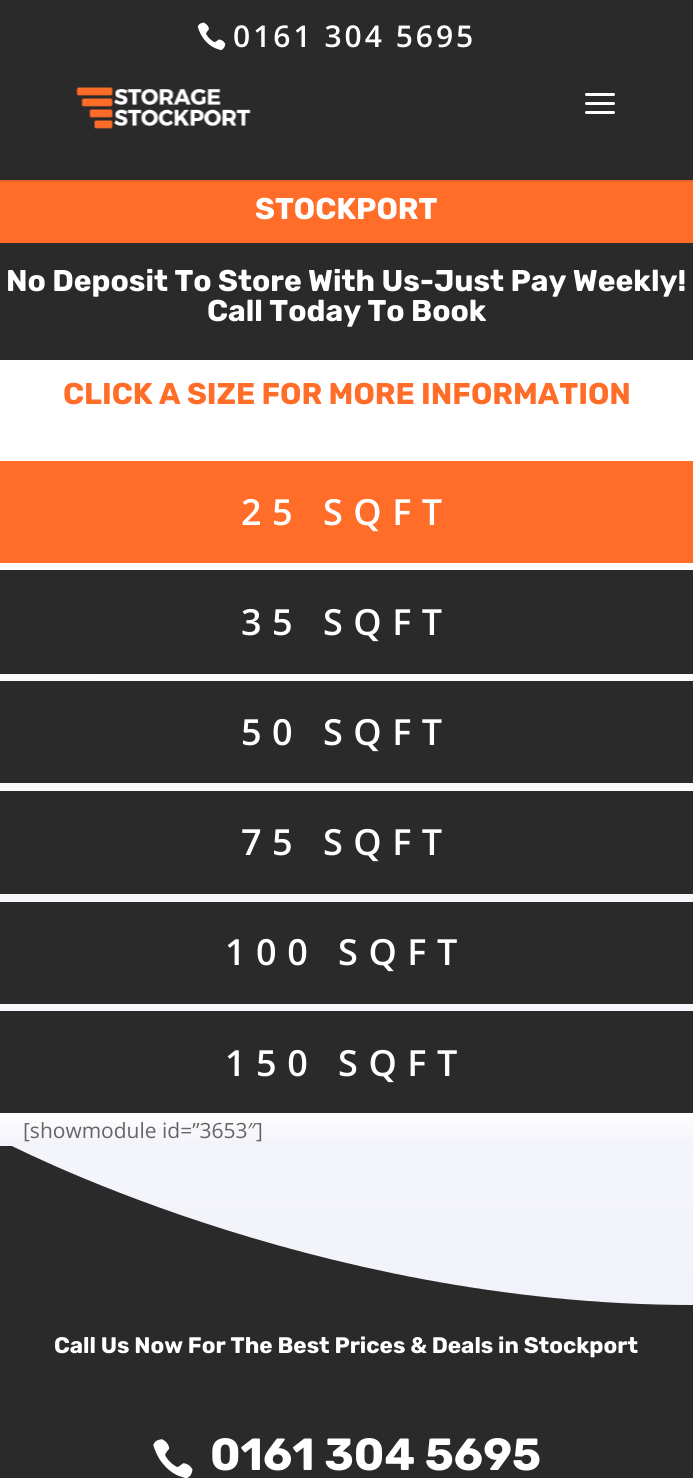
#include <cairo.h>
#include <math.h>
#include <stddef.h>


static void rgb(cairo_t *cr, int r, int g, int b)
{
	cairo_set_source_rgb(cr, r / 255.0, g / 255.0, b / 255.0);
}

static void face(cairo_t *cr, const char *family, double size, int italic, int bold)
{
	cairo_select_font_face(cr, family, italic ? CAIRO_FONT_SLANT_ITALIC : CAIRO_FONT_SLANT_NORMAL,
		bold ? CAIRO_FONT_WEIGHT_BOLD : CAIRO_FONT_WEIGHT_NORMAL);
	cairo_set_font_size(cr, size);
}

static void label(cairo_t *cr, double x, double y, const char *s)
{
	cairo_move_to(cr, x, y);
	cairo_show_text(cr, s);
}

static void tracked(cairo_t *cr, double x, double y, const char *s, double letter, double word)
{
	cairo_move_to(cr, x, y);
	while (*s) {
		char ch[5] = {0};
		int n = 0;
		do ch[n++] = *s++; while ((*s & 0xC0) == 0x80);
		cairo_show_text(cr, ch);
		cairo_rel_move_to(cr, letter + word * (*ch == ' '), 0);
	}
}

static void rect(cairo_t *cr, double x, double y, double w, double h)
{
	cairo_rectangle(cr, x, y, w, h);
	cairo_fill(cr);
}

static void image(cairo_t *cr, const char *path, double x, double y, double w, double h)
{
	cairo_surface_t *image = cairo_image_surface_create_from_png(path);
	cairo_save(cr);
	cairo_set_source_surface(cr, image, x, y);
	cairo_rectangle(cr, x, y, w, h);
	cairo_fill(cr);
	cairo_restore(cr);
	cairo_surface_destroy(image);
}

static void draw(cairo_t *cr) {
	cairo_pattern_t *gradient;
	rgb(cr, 255, 255, 255);
	cairo_paint(cr);
	rgb(cr, 255, 109, 41);
	rect(cr, 0, 180, 693, 63);
	cairo_set_source_rgba(cr, 0, 0, 0, 0.1);
	rect(cr, 0, 180, 693, 2);
	rgb(cr, 42, 42, 42);
	rect(cr, 0, 0, 693, 180);
	image(cr, "image0.png", 76, 87, 175, 42);
	image(cr, "image1.png", 585, 93, 30, 21);
	image(cr, "image2.png", 197, 22, 29, 29);
	face(cr, "Open Sans SemiBold", 30, 0, 0);
	rgb(cr, 255, 255, 255);
	tracked(cr, 233, 47, "0161 304 5695", 3, 0);
	face(cr, "Rubik", 30, 0, 1);
	label(cr, 255, 219, "STOCKPORT");
	rgb(cr, 42, 42, 42);
	rect(cr, 0, 243, 693, 117);
	rgb(cr, 255, 255, 255);
	label(cr, 6, 291, "No Deposit To Store With Us-Just Pay Weekly!");
	label(cr, 207, 321, "Call Today To Book");
	rgb(cr, 255, 109, 41);
	label(cr, 63, 404, "CLICK A SIZE FOR MORE INFORMATION");
	gradient = cairo_pattern_create_linear(346, 446, 347, 1305);
	cairo_pattern_add_color_stop_rgba(gradient, 0, 1, 1, 1, 1);
	cairo_pattern_add_color_stop_rgba(gradient, 1, 0.949, 0.949, 0.98, 1);
	cairo_set_source(cr, gradient);
	cairo_pattern_destroy(gradient);
	rect(cr, 0, 611, 693, 694);
	rgb(cr, 255, 109, 41);
	rect(cr, 0, 461, 693, 102);
	face(cr, "Open Sans SemiBold", 36, 0, 0);
	rgb(cr, 255, 255, 255);
	tracked(cr, 241, 525, "25 SQFT", 10.5, 0);
	rgb(cr, 42, 42, 42);
	rect(cr, 0, 570, 693, 104);
	rgb(cr, 255, 255, 255);
	tracked(cr, 241, 635, "35 SQFT", 10.5, 0);
	rgb(cr, 42, 42, 42);
	rect(cr, 0, 681, 693, 102);
	rgb(cr, 255, 255, 255);
	tracked(cr, 241, 745, "50 SQFT", 10.5, 0);
	rgb(cr, 42, 42, 42);
	rect(cr, 0, 791, 693, 103);
	rgb(cr, 255, 255, 255);
	tracked(cr, 241, 855, "75 SQFT", 10.5, 0);
	rgb(cr, 42, 42, 42);
	rect(cr, 0, 902, 693, 102);
	rgb(cr, 255, 255, 255);
	tracked(cr, 225, 965, "100 SQFT", 10.5, 0);
	rgb(cr, 42, 42, 42);
	rect(cr, 0, 1011, 693, 102);
	rgb(cr, 255, 255, 255);
	tracked(cr, 225, 1076, "150 SQFT", 10.5, 0);
	rgb(cr, 42, 42, 42);
	cairo_new_path(cr);
	cairo_move_to(cr, 0, 1305);
	cairo_line_to(cr, 693, 1305);
	cairo_curve_to(cr, 310, 1305, 0, 1140, 0, 1140);
	cairo_close_path(cr);
	cairo_fill(cr);
	gradient = cairo_pattern_create_linear(347, 1113, 347, 1146);
	cairo_pattern_add_color_stop_rgba(gradient, 0, 1, 1, 1, 1);
	cairo_pattern_add_color_stop_rgba(gradient, 1, 0.949, 0.949, 0.98, 1);
	cairo_set_source(cr, gradient);
	cairo_pattern_destroy(gradient);
	rect(cr, 0, 1113, 693, 33);
	face(cr, "Open Sans", 21, 0, 0);
	rgb(cr, 102, 102, 102);
	label(cr, 23, 1138, "[showmodule id=”3653″]");
	rgb(cr, 42, 42, 42);
	rect(cr, 0, 1305, 693, 173);
	face(cr, "Rubik", 22.5, 0, 1);
	rgb(cr, 255, 255, 255);
	label(cr, 54, 1353, "Call Us Now For The Best Prices & Deals in Stockport");
	image(cr, "image3.png", 153, 1439, 40, 39);
	face(cr, "Rubik", 45, 0, 1);
	label(cr, 210, 1470, "0161 304 5695");
}

int main(void) {
	cairo_surface_t *surface = cairo_image_surface_create(CAIRO_FORMAT_RGB24, 693, 1478);
	cairo_t *cr = cairo_create(surface);
	cairo_font_options_t *options = cairo_font_options_create();
	cairo_font_options_set_hint_metrics(options, CAIRO_HINT_METRICS_OFF);
	cairo_font_options_set_hint_style(options, CAIRO_HINT_STYLE_NONE);
	cairo_set_font_options(cr, options);
	cairo_set_miter_limit(cr, 4);
	draw(cr);
	cairo_surface_write_to_png(surface, "render.png");
	cairo_font_options_destroy(options);
	cairo_destroy(cr);
	cairo_surface_destroy(surface);
	return 0;
}
